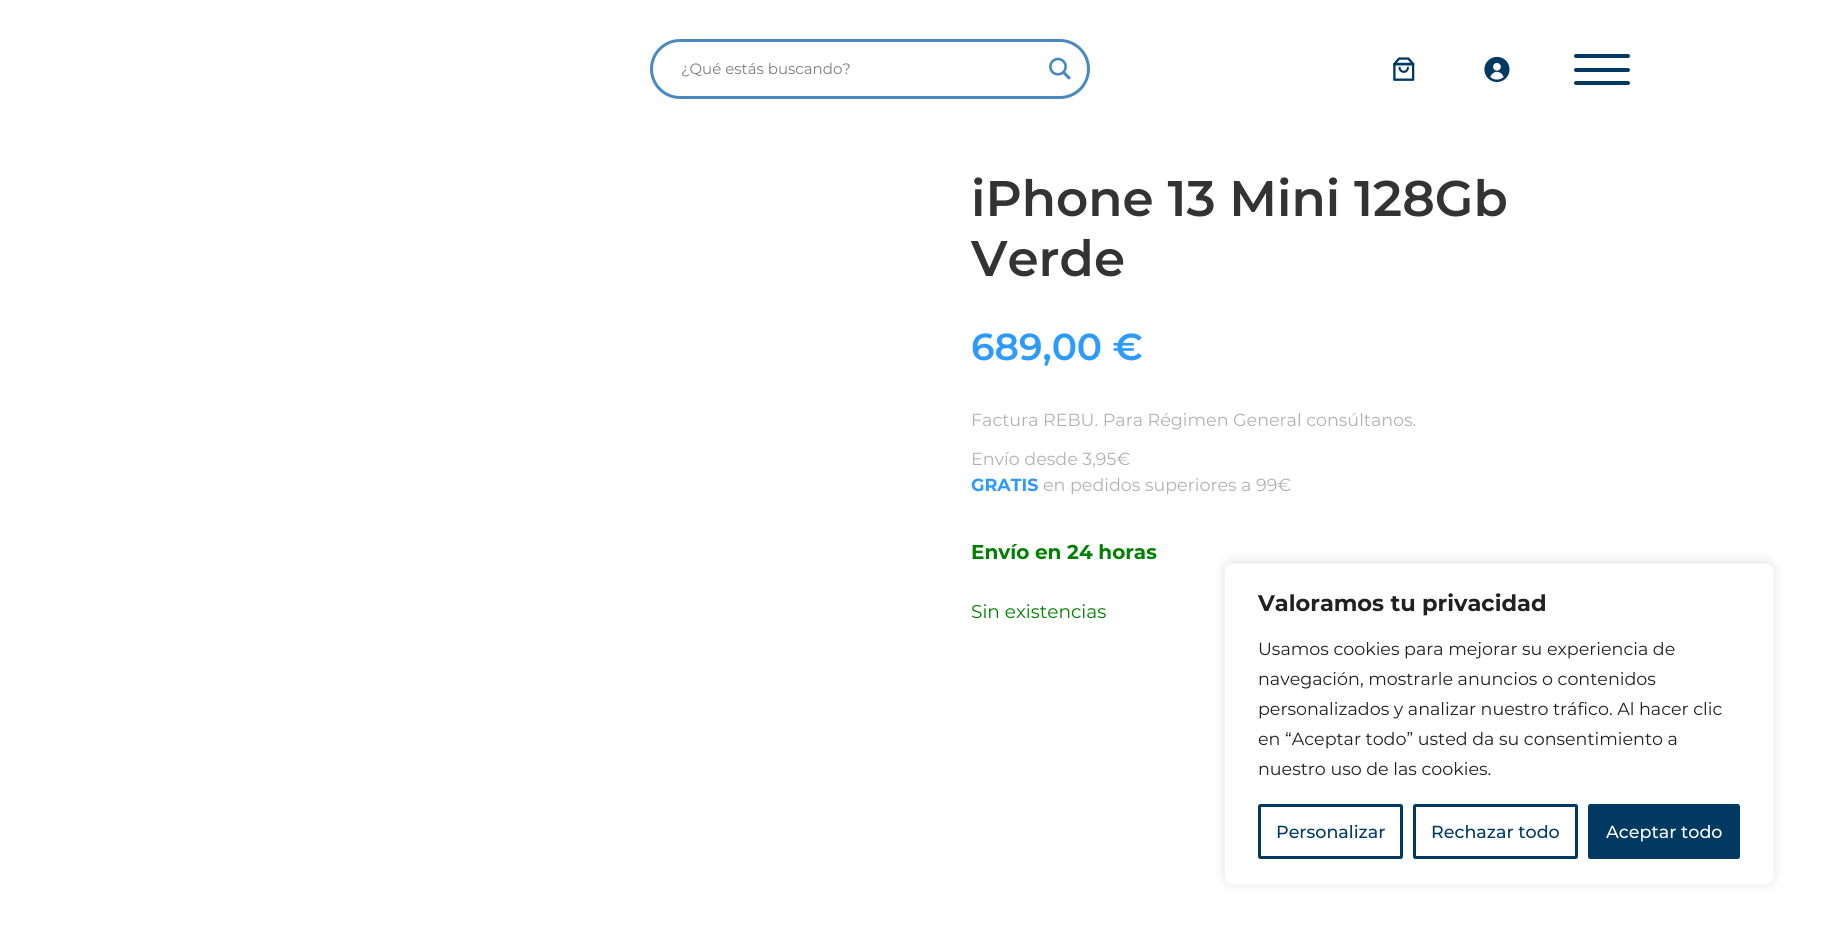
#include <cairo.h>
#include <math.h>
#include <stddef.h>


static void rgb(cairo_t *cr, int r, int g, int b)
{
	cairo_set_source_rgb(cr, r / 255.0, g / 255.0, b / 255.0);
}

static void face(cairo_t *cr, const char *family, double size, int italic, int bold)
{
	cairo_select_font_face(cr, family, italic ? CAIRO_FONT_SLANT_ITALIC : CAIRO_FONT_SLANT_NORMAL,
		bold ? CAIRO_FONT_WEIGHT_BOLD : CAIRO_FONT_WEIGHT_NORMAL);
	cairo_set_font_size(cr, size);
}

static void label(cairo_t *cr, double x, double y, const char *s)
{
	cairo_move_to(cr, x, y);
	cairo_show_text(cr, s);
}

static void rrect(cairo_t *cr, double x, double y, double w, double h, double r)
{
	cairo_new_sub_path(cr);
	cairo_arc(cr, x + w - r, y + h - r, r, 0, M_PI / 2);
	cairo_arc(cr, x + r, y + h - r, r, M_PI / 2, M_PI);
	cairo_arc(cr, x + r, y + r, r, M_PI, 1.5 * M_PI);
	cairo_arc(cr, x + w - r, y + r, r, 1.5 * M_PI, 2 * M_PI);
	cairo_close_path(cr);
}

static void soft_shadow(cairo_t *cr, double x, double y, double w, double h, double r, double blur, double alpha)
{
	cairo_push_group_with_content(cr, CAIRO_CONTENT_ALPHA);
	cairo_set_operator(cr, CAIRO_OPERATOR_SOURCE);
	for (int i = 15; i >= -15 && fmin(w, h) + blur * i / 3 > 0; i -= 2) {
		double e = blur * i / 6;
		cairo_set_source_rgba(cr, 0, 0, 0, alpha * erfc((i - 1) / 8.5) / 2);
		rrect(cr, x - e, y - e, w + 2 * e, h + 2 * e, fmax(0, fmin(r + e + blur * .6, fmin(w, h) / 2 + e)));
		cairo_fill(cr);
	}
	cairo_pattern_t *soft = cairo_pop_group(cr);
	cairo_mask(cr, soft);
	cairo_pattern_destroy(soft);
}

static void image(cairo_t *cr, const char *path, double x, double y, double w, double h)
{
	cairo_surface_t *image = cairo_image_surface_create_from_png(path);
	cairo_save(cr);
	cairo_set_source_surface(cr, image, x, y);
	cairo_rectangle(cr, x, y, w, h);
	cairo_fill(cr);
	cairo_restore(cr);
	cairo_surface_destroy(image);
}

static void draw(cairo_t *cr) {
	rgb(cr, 255, 255, 255);
	cairo_paint(cr);
	rrect(cr, 651.5, 40.5, 437, 57, 28.5);
	rgb(cr, 74, 137, 191);
	cairo_set_line_width(cr, 3);
	cairo_stroke(cr);
	face(cr, "Montserrat", 15, 0, 0);
	rgb(cr, 125, 125, 125);
	label(cr, 681, 74, "¿Qué estás buscando?");
	image(cr, "image0.png", 1049, 57, 22, 23);
	image(cr, "image1.png", 1393, 57, 22, 24);
	image(cr, "image2.png", 1484, 56, 26, 26);
	rgb(cr, 0, 58, 99);
	rrect(cr, 1574, 54, 56, 4, 2);
	cairo_fill(cr);
	rrect(cr, 1574, 68, 56, 4, 2);
	cairo_fill(cr);
	rrect(cr, 1574, 81, 56, 4, 2);
	cairo_fill(cr);
	face(cr, "Montserrat SemiBold", 50, 0, 0);
	rgb(cr, 51, 51, 51);
	label(cr, 971, 216, "iPhone 13 Mini 128Gb");
	label(cr, 971, 276, "Verde");
	face(cr, "Montserrat SemiBold", 37.5, 0, 0);
	rgb(cr, 45, 154, 254);
	label(cr, 971, 360, "689,00 €");
	face(cr, "Montserrat", 17.5, 0, 0);
	rgb(cr, 178, 178, 178);
	label(cr, 971, 426, "Factura REBU. Para Régimen General consúltanos.");
	label(cr, 971, 465, "Envío desde 3,95€");
	face(cr, "Montserrat", 17.5, 0, 1);
	rgb(cr, 45, 154, 254);
	label(cr, 971, 491, "GRATIS");
	face(cr, "Montserrat", 17.5, 0, 0);
	rgb(cr, 178, 178, 178);
	label(cr, 1043, 491, "en pedidos superiores a 99€");
	face(cr, "Montserrat", 20, 0, 1);
	rgb(cr, 0, 128, 0);
	label(cr, 971, 559, "Envío en 24 horas");
	face(cr, "Montserrat", 18.5, 0, 0);
	label(cr, 971, 618, "Sin existencias");
	rgb(cr, 172, 171, 171);
	soft_shadow(cr, 1224, 561, 550, 323, 8, 6, 0.3);
	rgb(cr, 255, 255, 255);
	rrect(cr, 1224.5, 563.5, 549, 321, 7.5);
	cairo_fill_preserve(cr);
	rgb(cr, 244, 244, 244);
	cairo_set_line_width(cr, 1);
	cairo_stroke(cr);
	face(cr, "Montserrat", 22.5, 0, 1);
	rgb(cr, 33, 33, 33);
	label(cr, 1258, 611, "Valoramos tu privacidad");
	face(cr, "Montserrat", 17.5, 0, 0);
	label(cr, 1258, 655, "Usamos cookies para mejorar su experiencia de");
	label(cr, 1258, 685, "navegación, mostrarle anuncios o contenidos");
	label(cr, 1258, 715, "personalizados y analizar nuestro tráfico. Al hacer clic");
	label(cr, 1258, 745, "en “Aceptar todo” usted da su consentimiento a");
	label(cr, 1258, 775, "nuestro uso de las cookies.");
	rrect(cr, 1259.5, 805.5, 142, 52, 1);
	rgb(cr, 0, 58, 99);
	cairo_set_line_width(cr, 3);
	cairo_stroke(cr);
	face(cr, "Montserrat Medium", 17.5, 0, 0);
	label(cr, 1276, 838, "Personalizar");
	rrect(cr, 1414.5, 805.5, 162, 52, 1);
	cairo_stroke(cr);
	label(cr, 1431, 838, "Rechazar todo");
	rrect(cr, 1589.5, 805.5, 149, 52, 1);
	cairo_fill_preserve(cr);
	cairo_stroke(cr);
	rgb(cr, 255, 255, 255);
	label(cr, 1606, 838, "Aceptar todo");
}

int main(void) {
	cairo_surface_t *surface = cairo_image_surface_create(CAIRO_FORMAT_RGB24, 1823, 935);
	cairo_t *cr = cairo_create(surface);
	cairo_font_options_t *options = cairo_font_options_create();
	cairo_font_options_set_hint_metrics(options, CAIRO_HINT_METRICS_OFF);
	cairo_font_options_set_hint_style(options, CAIRO_HINT_STYLE_NONE);
	cairo_set_font_options(cr, options);
	cairo_set_miter_limit(cr, 4);
	draw(cr);
	cairo_surface_write_to_png(surface, "render.png");
	cairo_font_options_destroy(options);
	cairo_destroy(cr);
	cairo_surface_destroy(surface);
	return 0;
}
